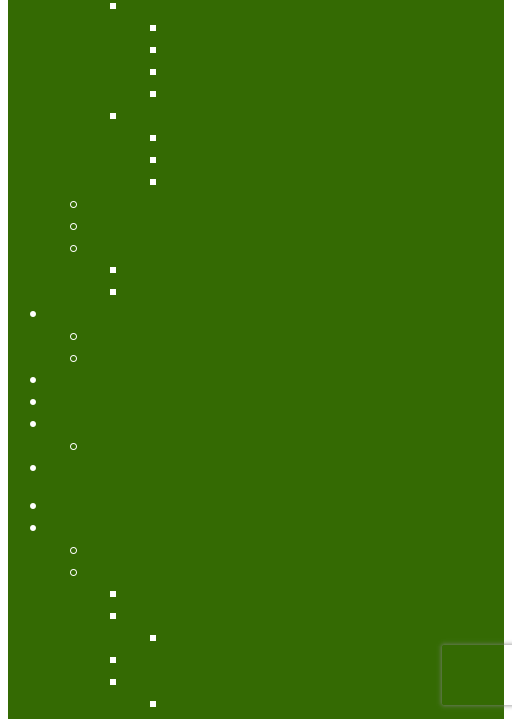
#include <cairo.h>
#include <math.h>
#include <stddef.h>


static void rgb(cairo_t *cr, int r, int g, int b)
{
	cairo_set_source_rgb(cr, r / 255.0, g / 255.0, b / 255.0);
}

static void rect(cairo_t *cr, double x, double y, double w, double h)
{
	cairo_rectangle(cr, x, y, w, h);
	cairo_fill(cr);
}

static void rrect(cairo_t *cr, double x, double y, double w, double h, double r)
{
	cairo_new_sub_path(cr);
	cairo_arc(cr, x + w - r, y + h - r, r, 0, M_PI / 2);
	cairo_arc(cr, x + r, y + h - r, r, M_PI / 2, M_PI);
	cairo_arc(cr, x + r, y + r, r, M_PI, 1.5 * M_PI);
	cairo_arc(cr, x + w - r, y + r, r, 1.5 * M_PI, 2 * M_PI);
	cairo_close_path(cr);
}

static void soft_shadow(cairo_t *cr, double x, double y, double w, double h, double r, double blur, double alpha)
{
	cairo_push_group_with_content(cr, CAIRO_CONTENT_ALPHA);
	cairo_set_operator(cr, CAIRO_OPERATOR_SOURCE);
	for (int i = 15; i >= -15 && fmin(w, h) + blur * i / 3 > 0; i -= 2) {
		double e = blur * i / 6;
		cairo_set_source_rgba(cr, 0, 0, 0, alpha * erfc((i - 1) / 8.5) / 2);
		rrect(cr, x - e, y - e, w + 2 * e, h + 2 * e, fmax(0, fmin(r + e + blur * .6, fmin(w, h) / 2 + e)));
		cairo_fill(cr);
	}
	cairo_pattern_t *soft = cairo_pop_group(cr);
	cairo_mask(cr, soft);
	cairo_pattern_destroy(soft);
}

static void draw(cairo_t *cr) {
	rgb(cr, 255, 255, 255);
	cairo_paint(cr);
	rgb(cr, 52, 106, 3);
	rect(cr, 8, 0, 496, 719);
	rgb(cr, 255, 255, 255);
	rect(cr, 110, 3, 6, 6);
	rect(cr, 150, 25, 6, 6);
	rect(cr, 150, 47, 6, 6);
	rect(cr, 150, 69, 6, 6);
	rect(cr, 150, 91, 6, 6);
	rect(cr, 110, 113, 6, 6);
	rect(cr, 150, 135, 6, 6);
	rect(cr, 150, 157, 6, 6);
	rect(cr, 150, 179, 6, 6);
	cairo_arc(cr, 73.5, 204.5, 3, 0, 2 * M_PI);
	cairo_set_line_width(cr, 1);
	cairo_stroke(cr);
	cairo_arc(cr, 73.5, 226.5, 3, 0, 2 * M_PI);
	cairo_stroke(cr);
	cairo_arc(cr, 73.5, 248.5, 3, 0, 2 * M_PI);
	cairo_stroke(cr);
	rect(cr, 110, 267, 6, 6);
	rect(cr, 110, 289, 6, 6);
	cairo_arc(cr, 33, 314, 3, 0, 2 * M_PI);
	cairo_fill(cr);
	cairo_arc(cr, 73.5, 336.5, 3, 0, 2 * M_PI);
	cairo_stroke(cr);
	cairo_arc(cr, 73.5, 358.5, 3, 0, 2 * M_PI);
	cairo_stroke(cr);
	cairo_arc(cr, 33, 380, 3, 0, 2 * M_PI);
	cairo_fill(cr);
	cairo_arc(cr, 33, 402, 3, 0, 2 * M_PI);
	cairo_fill(cr);
	cairo_arc(cr, 33, 424, 3, 0, 2 * M_PI);
	cairo_fill(cr);
	cairo_arc(cr, 73.5, 446.5, 3, 0, 2 * M_PI);
	cairo_stroke(cr);
	cairo_arc(cr, 33, 468, 3, 0, 2 * M_PI);
	cairo_fill(cr);
	cairo_arc(cr, 33, 506, 3, 0, 2 * M_PI);
	cairo_fill(cr);
	cairo_arc(cr, 33, 528, 3, 0, 2 * M_PI);
	cairo_fill(cr);
	cairo_arc(cr, 73.5, 550.5, 3, 0, 2 * M_PI);
	cairo_stroke(cr);
	cairo_arc(cr, 73.5, 572.5, 3, 0, 2 * M_PI);
	cairo_stroke(cr);
	rect(cr, 110, 591, 6, 6);
	rect(cr, 110, 613, 6, 6);
	rect(cr, 150, 635, 6, 6);
	rect(cr, 110, 657, 6, 6);
	rect(cr, 110, 679, 6, 6);
	rect(cr, 150, 701, 6, 6);
	cairo_save(cr);
	cairo_set_fill_rule(cr, CAIRO_FILL_RULE_EVEN_ODD);
	cairo_new_path(cr);
	cairo_move_to(cr, 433, 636);
	cairo_line_to(cr, 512, 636);
	cairo_line_to(cr, 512, 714);
	cairo_line_to(cr, 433, 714);
	cairo_close_path(cr);
	cairo_move_to(cr, 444, 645);
	cairo_line_to(cr, 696, 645);
	cairo_curve_to(cr, 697, 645, 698, 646, 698, 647);
	cairo_line_to(cr, 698, 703);
	cairo_curve_to(cr, 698, 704, 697, 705, 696, 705);
	cairo_line_to(cr, 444, 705);
	cairo_curve_to(cr, 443, 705, 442, 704, 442, 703);
	cairo_line_to(cr, 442, 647);
	cairo_curve_to(cr, 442, 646, 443, 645, 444, 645);
	cairo_close_path(cr);
	cairo_clip(cr);
	rgb(cr, 128, 128, 128);
	soft_shadow(cr, 442, 645, 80, 60, 2, 2.5, 1);
	cairo_restore(cr);
}

int main(void) {
	cairo_surface_t *surface = cairo_image_surface_create(CAIRO_FORMAT_RGB24, 512, 719);
	cairo_t *cr = cairo_create(surface);
	cairo_font_options_t *options = cairo_font_options_create();
	cairo_font_options_set_hint_metrics(options, CAIRO_HINT_METRICS_OFF);
	cairo_font_options_set_hint_style(options, CAIRO_HINT_STYLE_NONE);
	cairo_set_font_options(cr, options);
	cairo_set_miter_limit(cr, 4);
	draw(cr);
	cairo_surface_write_to_png(surface, "render.png");
	cairo_font_options_destroy(options);
	cairo_destroy(cr);
	cairo_surface_destroy(surface);
	return 0;
}
